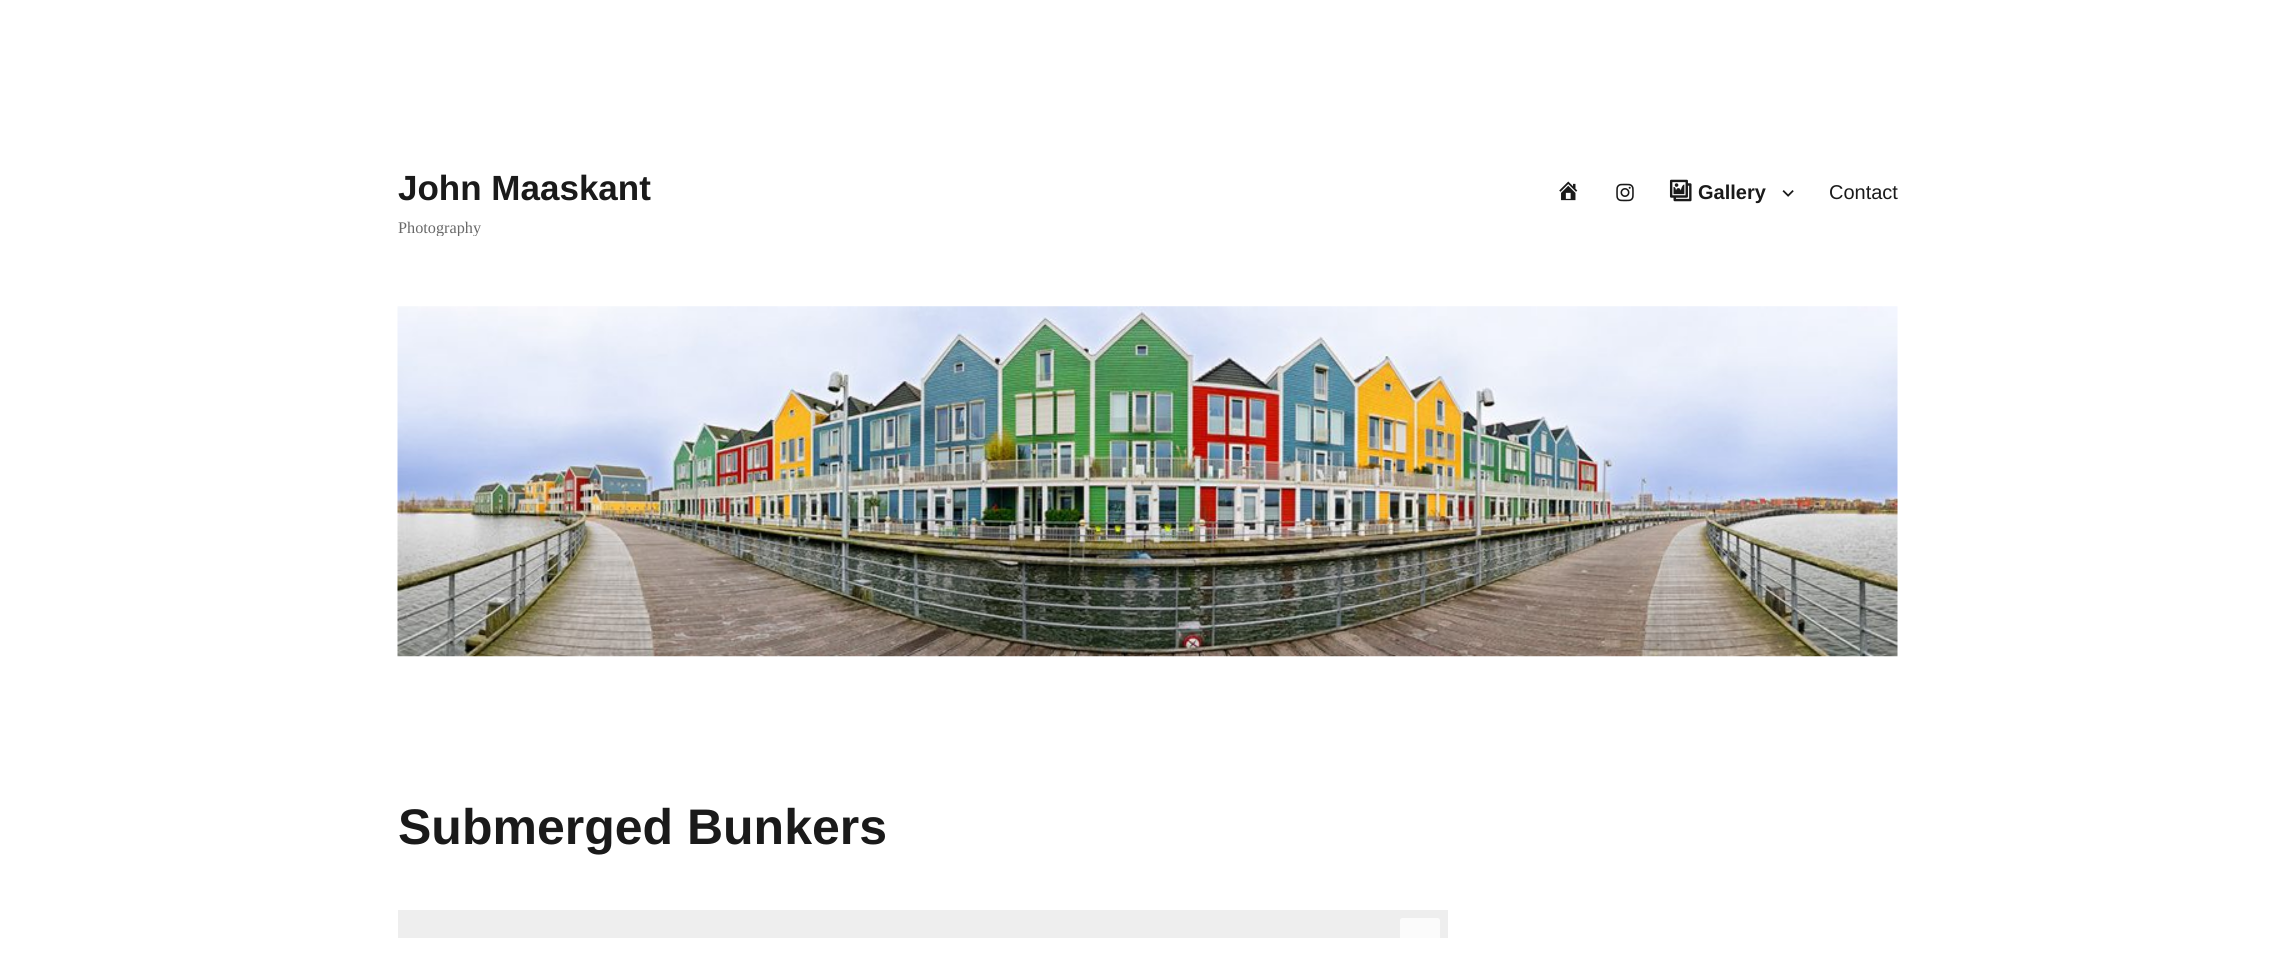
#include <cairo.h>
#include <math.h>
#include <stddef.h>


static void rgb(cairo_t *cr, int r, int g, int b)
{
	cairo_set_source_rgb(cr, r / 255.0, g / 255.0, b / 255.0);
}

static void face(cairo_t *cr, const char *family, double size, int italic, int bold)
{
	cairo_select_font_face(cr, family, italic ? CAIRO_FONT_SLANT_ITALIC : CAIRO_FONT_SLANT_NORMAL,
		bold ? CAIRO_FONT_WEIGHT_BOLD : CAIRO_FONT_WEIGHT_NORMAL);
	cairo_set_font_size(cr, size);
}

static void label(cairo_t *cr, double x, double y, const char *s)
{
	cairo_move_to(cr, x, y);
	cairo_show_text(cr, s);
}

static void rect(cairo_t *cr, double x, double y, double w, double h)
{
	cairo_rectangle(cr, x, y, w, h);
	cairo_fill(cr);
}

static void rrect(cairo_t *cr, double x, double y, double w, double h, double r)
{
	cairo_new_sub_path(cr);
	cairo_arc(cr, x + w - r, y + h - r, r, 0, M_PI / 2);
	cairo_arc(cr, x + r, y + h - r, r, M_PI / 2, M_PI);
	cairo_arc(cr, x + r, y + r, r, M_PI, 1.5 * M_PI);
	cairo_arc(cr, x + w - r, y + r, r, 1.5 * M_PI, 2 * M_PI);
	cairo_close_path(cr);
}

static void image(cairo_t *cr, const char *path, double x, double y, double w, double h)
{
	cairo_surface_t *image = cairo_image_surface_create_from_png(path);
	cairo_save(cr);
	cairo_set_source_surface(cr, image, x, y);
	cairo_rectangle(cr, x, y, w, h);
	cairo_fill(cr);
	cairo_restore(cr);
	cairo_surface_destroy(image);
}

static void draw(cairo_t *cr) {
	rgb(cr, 255, 255, 255);
	cairo_paint(cr);
	face(cr, "Liberation Sans", 35, 0, 1);
	rgb(cr, 26, 26, 26);
	label(cr, 398, 200, "John Maaskant");
	cairo_save(cr);
	cairo_rectangle(cr, 398, 166, 252, 70);
	cairo_clip(cr);
	face(cr, "Liberation Serif", 16.25, 0, 0);
	rgb(cr, 104, 104, 104);
	label(cr, 398, 233, "Photography");
	cairo_restore(cr);
	image(cr, "image0.png", 1559, 181, 19, 20);
	image(cr, "image1.png", 1616, 183, 18, 19);
	image(cr, "image2.png", 1669, 179, 23, 23);
	face(cr, "Liberation Sans", 20, 0, 1);
	label(cr, 1698, 199, "Gallery");
	image(cr, "image3.png", 1782, 190, 12, 7);
	face(cr, "Liberation Sans", 20, 0, 0);
	label(cr, 1829, 199, "Contact");
	image(cr, "image4.png", 397, 306, 1501, 351);
	face(cr, "Liberation Sans", 50, 0, 1);
	label(cr, 398, 844, "Submerged Bunkers");
	rgb(cr, 238, 238, 238);
	rect(cr, 398, 910, 1050, 28);
	rgb(cr, 251, 251, 251);
	rrect(cr, 1400, 918, 40, 40, 2.5);
	cairo_fill(cr);
	rgb(cr, 255, 255, 255);
	rect(cr, 1400, 938, 40, 20);
}

int main(void) {
	cairo_surface_t *surface = cairo_image_surface_create(CAIRO_FORMAT_RGB24, 2295, 963);
	cairo_t *cr = cairo_create(surface);
	cairo_font_options_t *options = cairo_font_options_create();
	cairo_font_options_set_hint_metrics(options, CAIRO_HINT_METRICS_OFF);
	cairo_font_options_set_hint_style(options, CAIRO_HINT_STYLE_NONE);
	cairo_set_font_options(cr, options);
	cairo_set_miter_limit(cr, 4);
	draw(cr);
	cairo_surface_write_to_png(surface, "render.png");
	cairo_font_options_destroy(options);
	cairo_destroy(cr);
	cairo_surface_destroy(surface);
	return 0;
}
